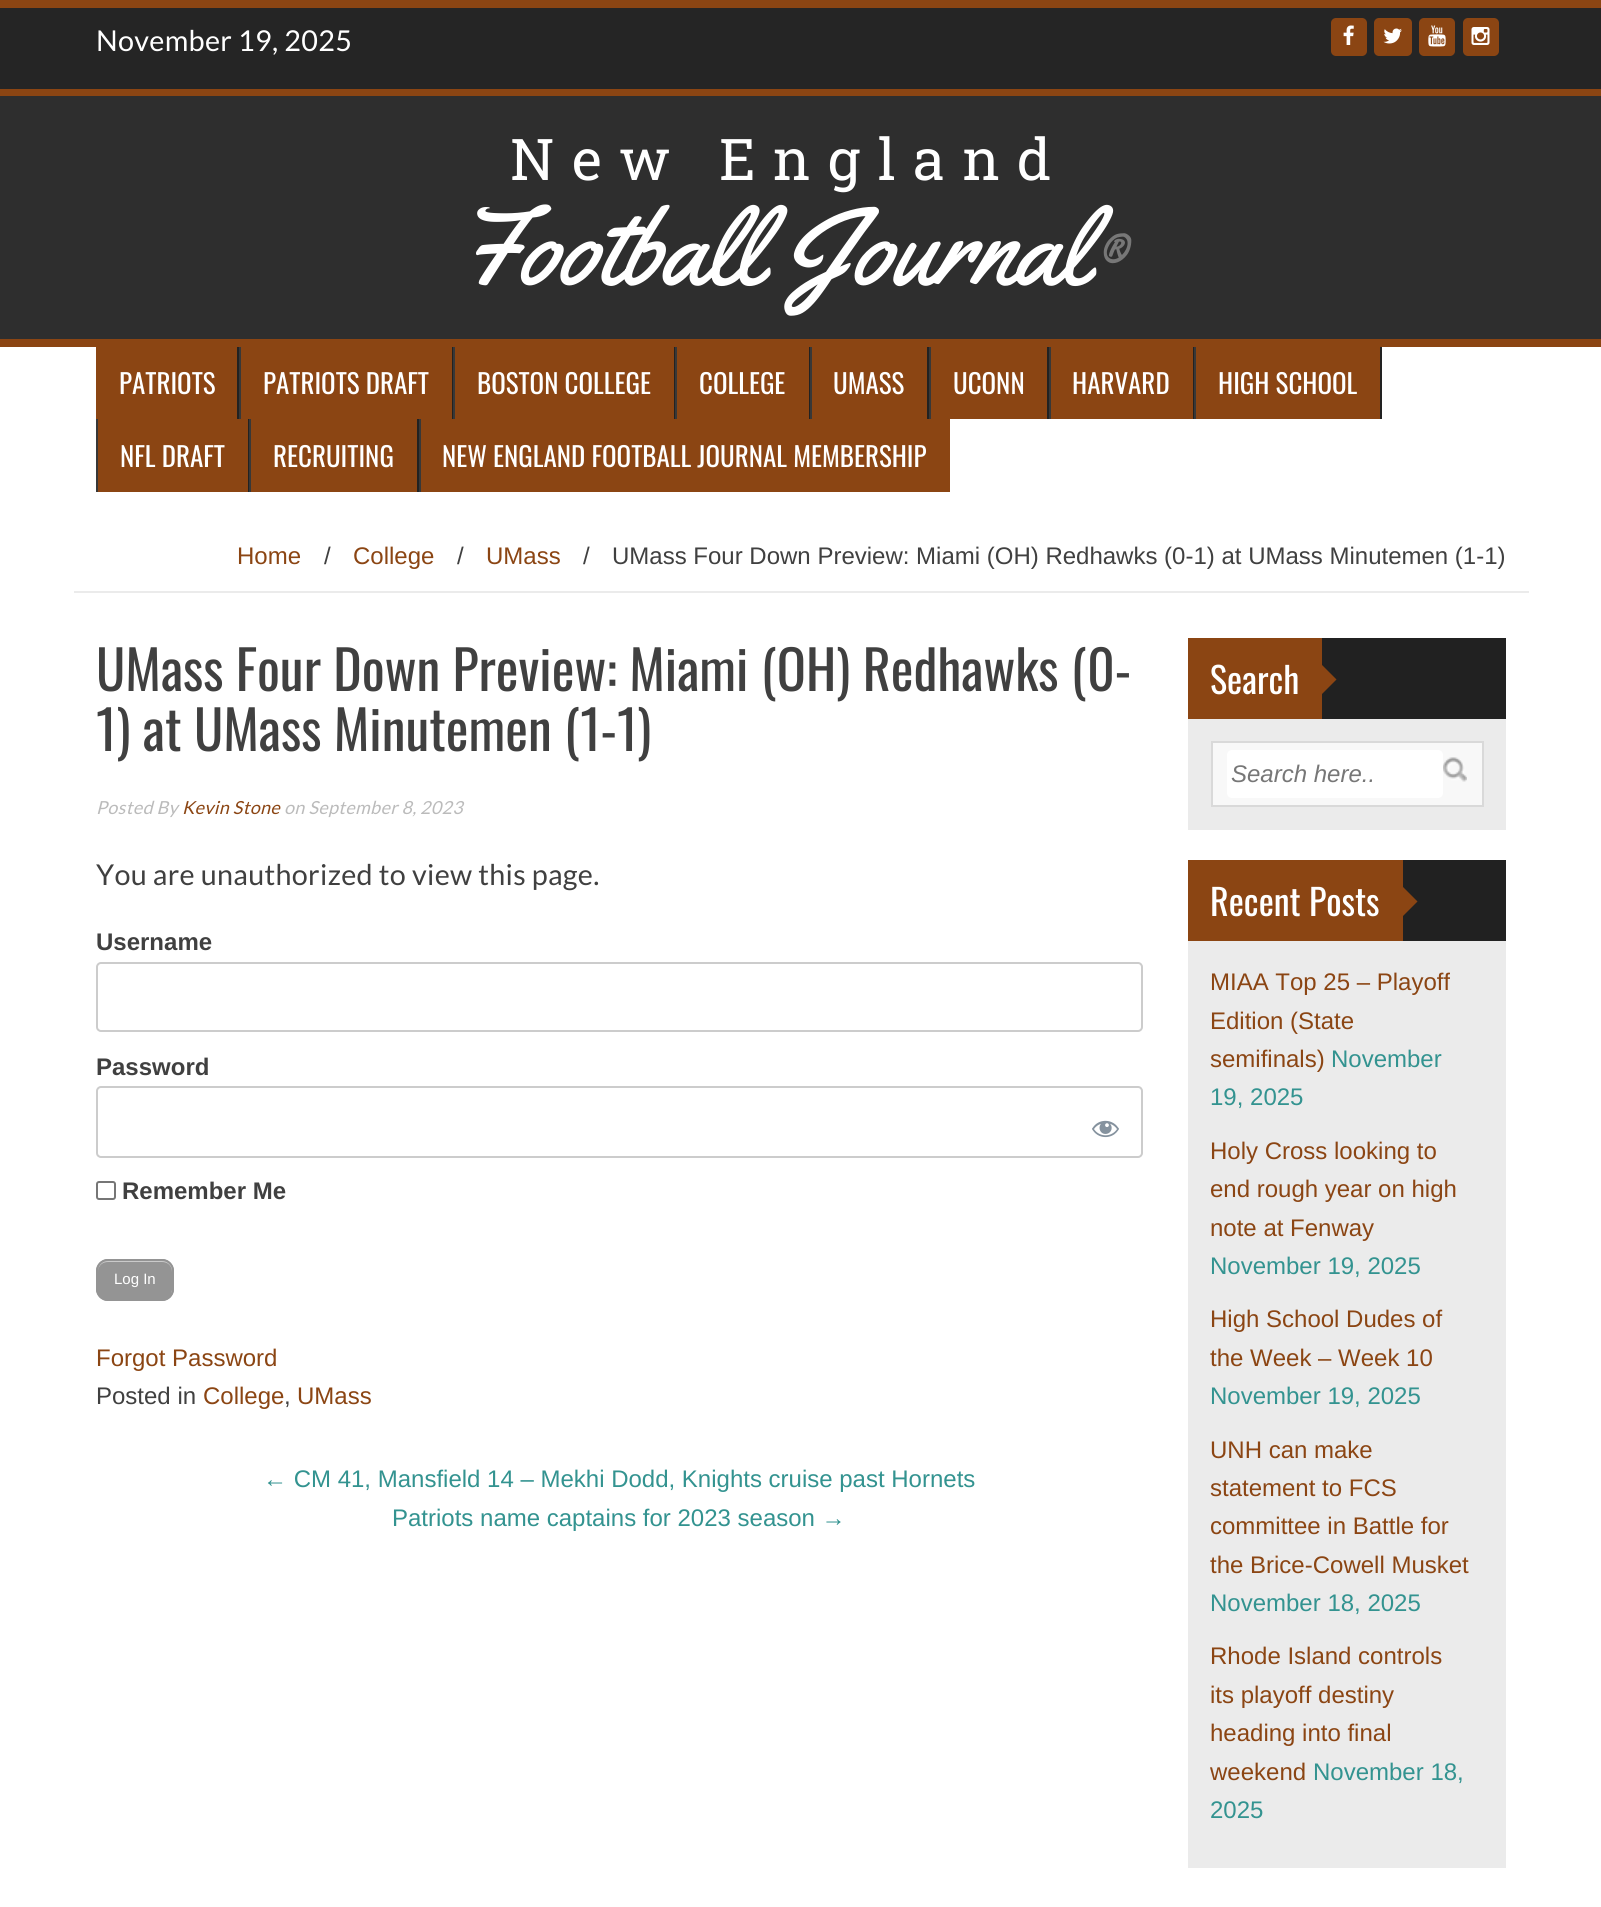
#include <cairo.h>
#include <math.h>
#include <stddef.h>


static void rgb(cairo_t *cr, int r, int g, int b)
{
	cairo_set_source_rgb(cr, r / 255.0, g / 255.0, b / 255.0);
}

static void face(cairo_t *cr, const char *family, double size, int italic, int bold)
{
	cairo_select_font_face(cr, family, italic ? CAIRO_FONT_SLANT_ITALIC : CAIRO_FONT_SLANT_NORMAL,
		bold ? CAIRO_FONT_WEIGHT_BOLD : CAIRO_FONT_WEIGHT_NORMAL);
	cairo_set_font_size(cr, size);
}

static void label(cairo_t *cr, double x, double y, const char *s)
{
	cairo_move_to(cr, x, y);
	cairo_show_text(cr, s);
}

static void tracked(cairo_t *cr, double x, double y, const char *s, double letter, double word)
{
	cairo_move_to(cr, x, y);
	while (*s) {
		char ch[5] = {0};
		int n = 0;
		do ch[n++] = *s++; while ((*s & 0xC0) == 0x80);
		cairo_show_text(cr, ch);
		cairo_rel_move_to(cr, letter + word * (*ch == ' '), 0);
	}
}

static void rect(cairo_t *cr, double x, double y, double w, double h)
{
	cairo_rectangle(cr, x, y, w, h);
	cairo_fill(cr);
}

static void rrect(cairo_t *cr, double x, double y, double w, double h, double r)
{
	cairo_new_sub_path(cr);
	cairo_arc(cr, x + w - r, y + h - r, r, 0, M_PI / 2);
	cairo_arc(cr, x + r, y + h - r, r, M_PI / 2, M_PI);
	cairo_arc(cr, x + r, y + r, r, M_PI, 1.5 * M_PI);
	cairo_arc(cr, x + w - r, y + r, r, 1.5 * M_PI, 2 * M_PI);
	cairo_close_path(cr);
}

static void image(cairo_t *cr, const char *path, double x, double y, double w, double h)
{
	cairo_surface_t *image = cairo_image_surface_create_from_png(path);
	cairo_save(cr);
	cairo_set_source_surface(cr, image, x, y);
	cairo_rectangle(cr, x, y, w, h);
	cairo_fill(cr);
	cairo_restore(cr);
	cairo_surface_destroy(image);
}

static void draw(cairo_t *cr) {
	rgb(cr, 255, 255, 255);
	cairo_paint(cr);
	rgb(cr, 37, 37, 37);
	rect(cr, 0, 8, 1601, 81);
	rgb(cr, 139, 69, 19);
	rect(cr, 0, 0, 1601, 8);
	face(cr, "Lato", 28.75, 0, 0);
	rgb(cr, 255, 255, 255);
	tracked(cr, 96, 51, "November 19, 2025", 0.3, 0);
	rgb(cr, 139, 69, 19);
	rrect(cr, 1331, 18, 36, 38, 5);
	cairo_fill(cr);
	image(cr, "image0.png", 1343, 25, 11, 20);
	rrect(cr, 1374, 18, 38, 38, 5);
	cairo_fill(cr);
	image(cr, "image1.png", 1383, 28, 19, 16);
	rrect(cr, 1419, 18, 36, 38, 5);
	cairo_fill(cr);
	image(cr, "image2.png", 1428, 25, 18, 22);
	rrect(cr, 1463, 18, 36, 38, 5);
	cairo_fill(cr);
	image(cr, "image3.png", 1471, 27, 19, 18);
	rgb(cr, 46, 46, 46);
	rect(cr, 0, 96, 1601, 243);
	rgb(cr, 139, 69, 19);
	rect(cr, 0, 89, 1601, 7);
	face(cr, "Roboto Slab", 57.5, 0, 0);
	rgb(cr, 255, 255, 255);
	tracked(cr, 510, 180, "New England", 17.25, 0);
	face(cr, "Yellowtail", 108, 0, 0);
	label(cr, 457, 284, "Football Journal");
	face(cr, "Yellowtail", 70, 0, 0);
	rgb(cr, 119, 119, 119);
	label(cr, 1088, 284, "®");
	rgb(cr, 139, 69, 19);
	rect(cr, 0, 339, 1601, 8);
	rect(cr, 96, 347, 141, 72);
	rgb(cr, 34, 34, 34);
	rect(cr, 237, 347, 2, 72);
	face(cr, "Oswald", 27, 0, 0);
	rgb(cr, 255, 255, 255);
	label(cr, 119, 394, "PATRIOTS");
	rgb(cr, 139, 69, 19);
	rect(cr, 241, 347, 211, 72);
	rgb(cr, 34, 34, 34);
	rect(cr, 452, 347, 1, 72);
	rgb(cr, 56, 56, 56);
	rect(cr, 239, 347, 2, 72);
	rgb(cr, 255, 255, 255);
	label(cr, 263, 394, "PATRIOTS DRAFT");
	rgb(cr, 139, 69, 19);
	rect(cr, 455, 347, 219, 72);
	rgb(cr, 34, 34, 34);
	rect(cr, 674, 347, 1, 72);
	rgb(cr, 56, 56, 56);
	rect(cr, 453, 347, 2, 72);
	rgb(cr, 255, 255, 255);
	label(cr, 477, 394, "BOSTON COLLEGE");
	rgb(cr, 139, 69, 19);
	rect(cr, 677, 347, 132, 72);
	rgb(cr, 34, 34, 34);
	rect(cr, 809, 347, 1, 72);
	rgb(cr, 56, 56, 56);
	rect(cr, 675, 347, 2, 72);
	rgb(cr, 255, 255, 255);
	label(cr, 699, 394, "COLLEGE");
	rgb(cr, 139, 69, 19);
	rect(cr, 812, 347, 115, 72);
	rgb(cr, 34, 34, 34);
	rect(cr, 927, 347, 2, 72);
	rgb(cr, 56, 56, 56);
	rect(cr, 810, 347, 2, 72);
	rgb(cr, 255, 255, 255);
	label(cr, 833, 394, "UMASS");
	rgb(cr, 139, 69, 19);
	rect(cr, 931, 347, 116, 72);
	rgb(cr, 34, 34, 34);
	rect(cr, 1047, 347, 2, 72);
	rgb(cr, 56, 56, 56);
	rect(cr, 929, 347, 2, 72);
	rgb(cr, 255, 255, 255);
	label(cr, 953, 394, "UCONN");
	rgb(cr, 139, 69, 19);
	rect(cr, 1051, 347, 142, 72);
	rgb(cr, 34, 34, 34);
	rect(cr, 1193, 347, 1, 72);
	rgb(cr, 56, 56, 56);
	rect(cr, 1049, 347, 2, 72);
	rgb(cr, 255, 255, 255);
	label(cr, 1072, 394, "HARVARD");
	rgb(cr, 139, 69, 19);
	rect(cr, 1196, 347, 184, 72);
	rgb(cr, 34, 34, 34);
	rect(cr, 1380, 347, 2, 72);
	rgb(cr, 56, 56, 56);
	rect(cr, 1194, 347, 2, 72);
	rgb(cr, 255, 255, 255);
	label(cr, 1218, 394, "HIGH SCHOOL");
	rgb(cr, 139, 69, 19);
	rect(cr, 98, 419, 150, 73);
	rgb(cr, 34, 34, 34);
	rect(cr, 248, 419, 1, 73);
	rgb(cr, 56, 56, 56);
	rect(cr, 96, 419, 2, 73);
	rgb(cr, 255, 255, 255);
	label(cr, 120, 467, "NFL DRAFT");
	rgb(cr, 139, 69, 19);
	rect(cr, 251, 419, 166, 73);
	rgb(cr, 34, 34, 34);
	rect(cr, 417, 419, 2, 73);
	rgb(cr, 56, 56, 56);
	rect(cr, 249, 419, 2, 73);
	rgb(cr, 255, 255, 255);
	label(cr, 273, 467, "RECRUITING");
	rgb(cr, 139, 69, 19);
	rect(cr, 421, 419, 529, 73);
	rgb(cr, 56, 56, 56);
	rect(cr, 419, 419, 2, 73);
	rgb(cr, 255, 255, 255);
	label(cr, 442, 467, "NEW ENGLAND FOOTBALL JOURNAL MEMBERSHIP");
	rgb(cr, 235, 235, 235);
	rect(cr, 74, 591, 1455, 2);
	face(cr, "Liberation Sans", 24, 0, 0);
	rgb(cr, 139, 69, 19);
	label(cr, 237, 564, "Home");
	rgb(cr, 64, 64, 64);
	label(cr, 324, 564, "/");
	rgb(cr, 139, 69, 19);
	label(cr, 353, 564, "College");
	rgb(cr, 64, 64, 64);
	label(cr, 457, 564, "/");
	rgb(cr, 139, 69, 19);
	label(cr, 486, 564, "UMass");
	rgb(cr, 64, 64, 64);
	label(cr, 583, 564, "/");
	label(cr, 612, 564, "UMass Four Down Preview: Miami (OH) Redhawks (0-1) at UMass Minutemen (1-1)");
	face(cr, "Oswald", 54, 0, 0);
	label(cr, 96, 691, "UMass Four Down Preview: Miami (OH) Redhawks (0-");
	label(cr, 96, 751, "1) at UMass Minutemen (1-1)");
	face(cr, "Lato", 18, 1, 0);
	rgb(cr, 187, 187, 187);
	tracked(cr, 96, 814, "Posted By", 0.3, 0);
	rgb(cr, 139, 69, 19);
	tracked(cr, 182, 814, "Kevin Stone", 0.3, 0);
	rgb(cr, 187, 187, 187);
	tracked(cr, 284, 814, "on September 8, 2023", 0.3, 0);
	face(cr, "Lato", 28.75, 0, 0);
	rgb(cr, 64, 64, 64);
	tracked(cr, 96, 885, "You are unauthorized to view this page.", 0.3, 0);
	face(cr, "Liberation Sans", 24, 0, 1);
	label(cr, 96, 950, "Username");
	rrect(cr, 97, 963, 1045, 68, 4);
	rgb(cr, 204, 204, 204);
	cairo_stroke(cr);
	rgb(cr, 64, 64, 64);
	label(cr, 96, 1075, "Password");
	rrect(cr, 97, 1087, 1045, 70, 4);
	rgb(cr, 204, 204, 204);
	cairo_stroke(cr);
	image(cr, "image4.png", 1092, 1120, 27, 18);
	rrect(cr, 97, 1182, 18, 17, 2);
	rgb(cr, 118, 118, 118);
	cairo_stroke(cr);
	rgb(cr, 64, 64, 64);
	label(cr, 122, 1199, "Remember Me");
	rgb(cr, 148, 148, 148);
	rrect(cr, 96, 1259, 78, 42, 12);
	cairo_fill(cr);
	rgb(cr, 202, 202, 202);
	cairo_new_path(cr);
	cairo_move_to(cr, 108, 1262);
	cairo_line_to(cr, 162, 1262);
	cairo_curve_to(cr, 168, 1262, 172, 1266, 172, 1272);
	cairo_line_to(cr, 172, 1290);
	cairo_line_to(cr, 171, 1294);
	cairo_curve_to(cr, 174, 1289, 173, 1282, 173, 1277);
	cairo_curve_to(cr, 173, 1260, 169, 1260, 153, 1260);
	cairo_line_to(cr, 118, 1260);
	cairo_curve_to(cr, 108, 1260, 98, 1259, 98, 1272);
	cairo_curve_to(cr, 98, 1266, 102, 1262, 108, 1262);
	cairo_close_path(cr);
	cairo_fill(cr);
	rrect(cr, 97, 1260, 76, 40, 11);
	rgb(cr, 148, 148, 148);
	cairo_stroke(cr);
	face(cr, "Liberation Sans", 15, 0, 0);
	rgb(cr, 255, 255, 255);
	label(cr, 114, 1284, "Log In");
	face(cr, "Liberation Sans", 24, 0, 0);
	rgb(cr, 139, 69, 19);
	label(cr, 96, 1366, "Forgot Password");
	rgb(cr, 64, 64, 64);
	label(cr, 96, 1404, "Posted in");
	rgb(cr, 139, 69, 19);
	label(cr, 203, 1404, "College");
	rgb(cr, 64, 64, 64);
	label(cr, 284, 1404, ",");
	rgb(cr, 139, 69, 19);
	label(cr, 297, 1404, "UMass");
	rgb(cr, 51, 147, 144);
	label(cr, 263, 1487, "← CM 41, Mansfield 14 – Mekhi Dodd, Knights cruise past Hornets");
	label(cr, 392, 1526, "Patriots name captains for 2023 season →");
	rgb(cr, 235, 235, 235);
	rect(cr, 1188, 719, 318, 111);
	rgb(cr, 33, 33, 33);
	rect(cr, 1322, 638, 184, 81);
	rgb(cr, 139, 69, 19);
	rect(cr, 1188, 638, 134, 81);
	face(cr, "Oswald", 36, 0, 0);
	rgb(cr, 255, 255, 255);
	label(cr, 1210, 694, "Search");
	rgb(cr, 139, 69, 19);
	cairo_new_path(cr);
	cairo_move_to(cr, 1321.5, 694.5);
	cairo_line_to(cr, 1321.5, 664.5);
	cairo_line_to(cr, 1336.5, 679.5);
	cairo_close_path(cr);
	cairo_fill(cr);
	rgb(cr, 248, 248, 248);
	cairo_rectangle(cr, 1212, 742, 271, 64);
	cairo_fill_preserve(cr);
	rgb(cr, 217, 217, 217);
	cairo_stroke(cr);
	rgb(cr, 255, 255, 255);
	rrect(cr, 1227, 750, 216, 48, 5);
	cairo_fill(cr);
	face(cr, "Liberation Sans", 24, 1, 0);
	rgb(cr, 119, 119, 119);
	label(cr, 1231, 782, "Search here..");
	image(cr, "image5.png", 1443, 757, 24, 25);
	rgb(cr, 235, 235, 235);
	rect(cr, 1188, 941, 318, 927);
	rgb(cr, 33, 33, 33);
	rect(cr, 1403, 860, 103, 81);
	rgb(cr, 139, 69, 19);
	rect(cr, 1188, 860, 215, 81);
	face(cr, "Oswald", 36, 0, 0);
	rgb(cr, 255, 255, 255);
	label(cr, 1210, 916, "Recent Posts");
	rgb(cr, 139, 69, 19);
	cairo_new_path(cr);
	cairo_move_to(cr, 1402.5, 916.5);
	cairo_line_to(cr, 1402.5, 886.5);
	cairo_line_to(cr, 1417.5, 901.5);
	cairo_close_path(cr);
	cairo_fill(cr);
	face(cr, "Liberation Sans", 24, 0, 0);
	label(cr, 1210, 990, "MIAA Top 25 – Playoff");
	label(cr, 1210, 1029, "Edition (State");
	label(cr, 1210, 1067, "semifinals)");
	rgb(cr, 51, 147, 144);
	label(cr, 1331, 1067, "November");
	label(cr, 1210, 1105, "19, 2025");
	rgb(cr, 139, 69, 19);
	label(cr, 1210, 1159, "Holy Cross looking to");
	label(cr, 1210, 1197, "end rough year on high");
	label(cr, 1210, 1236, "note at Fenway");
	rgb(cr, 51, 147, 144);
	label(cr, 1210, 1274, "November 19, 2025");
	rgb(cr, 139, 69, 19);
	label(cr, 1210, 1327, "High School Dudes of");
	label(cr, 1210, 1366, "the Week – Week 10");
	rgb(cr, 51, 147, 144);
	label(cr, 1210, 1404, "November 19, 2025");
	rgb(cr, 139, 69, 19);
	label(cr, 1210, 1458, "UNH can make");
	label(cr, 1210, 1496, "statement to FCS");
	label(cr, 1210, 1534, "committee in Battle for");
	label(cr, 1210, 1573, "the Brice-Cowell Musket");
	rgb(cr, 51, 147, 144);
	label(cr, 1210, 1611, "November 18, 2025");
	rgb(cr, 139, 69, 19);
	label(cr, 1210, 1664, "Rhode Island controls");
	label(cr, 1210, 1703, "its playoff destiny");
	label(cr, 1210, 1741, "heading into final");
	label(cr, 1210, 1780, "weekend");
	rgb(cr, 51, 147, 144);
	label(cr, 1313, 1780, "November 18,");
	label(cr, 1210, 1818, "2025");
}

int main(void) {
	cairo_surface_t *surface = cairo_image_surface_create(CAIRO_FORMAT_RGB24, 1601, 1907);
	cairo_t *cr = cairo_create(surface);
	cairo_font_options_t *options = cairo_font_options_create();
	cairo_font_options_set_hint_metrics(options, CAIRO_HINT_METRICS_OFF);
	cairo_font_options_set_hint_style(options, CAIRO_HINT_STYLE_NONE);
	cairo_set_font_options(cr, options);
	cairo_set_miter_limit(cr, 4);
	draw(cr);
	cairo_surface_write_to_png(surface, "render.png");
	cairo_font_options_destroy(options);
	cairo_destroy(cr);
	cairo_surface_destroy(surface);
	return 0;
}
